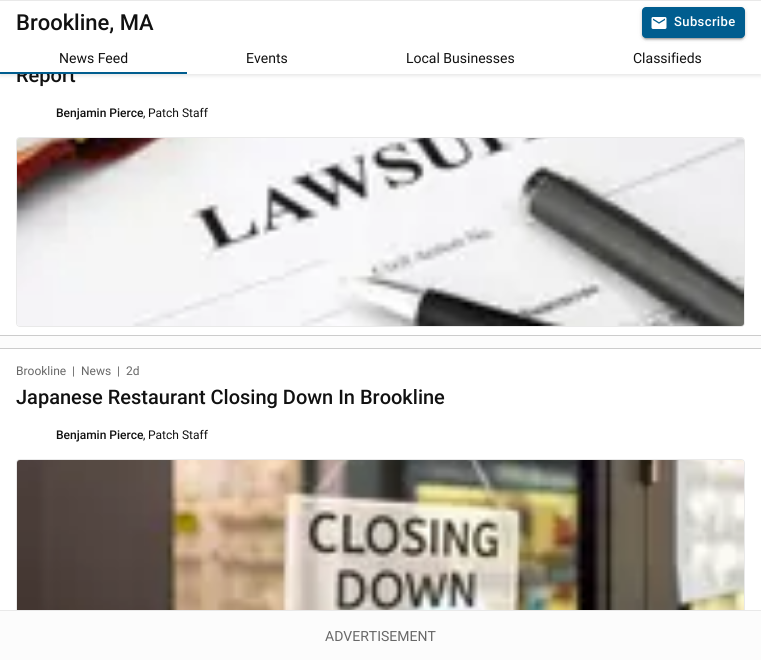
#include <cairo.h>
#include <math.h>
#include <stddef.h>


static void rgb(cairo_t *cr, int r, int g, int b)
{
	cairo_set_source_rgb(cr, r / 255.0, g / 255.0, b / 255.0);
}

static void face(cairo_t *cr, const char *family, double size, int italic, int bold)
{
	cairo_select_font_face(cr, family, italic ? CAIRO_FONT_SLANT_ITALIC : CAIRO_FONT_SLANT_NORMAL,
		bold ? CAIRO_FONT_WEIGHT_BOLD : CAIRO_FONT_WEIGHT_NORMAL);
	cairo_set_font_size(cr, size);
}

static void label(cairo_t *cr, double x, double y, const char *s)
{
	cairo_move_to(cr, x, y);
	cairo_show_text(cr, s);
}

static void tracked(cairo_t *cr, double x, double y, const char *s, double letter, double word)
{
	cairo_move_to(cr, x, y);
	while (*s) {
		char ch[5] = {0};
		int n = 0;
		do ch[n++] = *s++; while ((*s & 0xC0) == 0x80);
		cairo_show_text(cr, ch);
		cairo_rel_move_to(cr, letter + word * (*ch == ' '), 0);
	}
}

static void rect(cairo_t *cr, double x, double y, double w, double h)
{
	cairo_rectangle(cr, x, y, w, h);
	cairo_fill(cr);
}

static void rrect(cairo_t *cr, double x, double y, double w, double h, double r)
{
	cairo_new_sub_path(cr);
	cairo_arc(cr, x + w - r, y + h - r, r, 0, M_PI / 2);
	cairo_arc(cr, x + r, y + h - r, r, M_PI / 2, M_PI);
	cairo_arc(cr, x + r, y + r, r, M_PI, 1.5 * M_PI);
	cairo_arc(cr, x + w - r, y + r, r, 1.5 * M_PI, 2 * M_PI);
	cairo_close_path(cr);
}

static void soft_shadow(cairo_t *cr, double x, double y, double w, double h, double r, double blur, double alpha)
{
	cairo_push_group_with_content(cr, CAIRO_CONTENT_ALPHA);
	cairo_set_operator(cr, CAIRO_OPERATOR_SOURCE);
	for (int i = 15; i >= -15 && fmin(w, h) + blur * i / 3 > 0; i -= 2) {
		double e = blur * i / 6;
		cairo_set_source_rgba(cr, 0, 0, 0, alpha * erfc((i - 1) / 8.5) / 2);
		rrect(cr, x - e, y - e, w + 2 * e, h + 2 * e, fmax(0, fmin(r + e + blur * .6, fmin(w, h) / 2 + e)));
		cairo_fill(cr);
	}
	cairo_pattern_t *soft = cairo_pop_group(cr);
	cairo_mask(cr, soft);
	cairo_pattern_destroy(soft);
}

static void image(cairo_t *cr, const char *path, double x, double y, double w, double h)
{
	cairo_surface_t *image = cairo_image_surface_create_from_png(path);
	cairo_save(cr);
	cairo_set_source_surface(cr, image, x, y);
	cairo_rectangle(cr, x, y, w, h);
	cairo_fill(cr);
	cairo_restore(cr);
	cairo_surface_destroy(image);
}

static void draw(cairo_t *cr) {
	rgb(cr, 252, 252, 252);
	cairo_paint(cr);
	rgb(cr, 255, 255, 255);
	rect(cr, 0, 74, 761, 261);
	rgb(cr, 18, 18, 18);
	soft_shadow(cr, 0, -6, 761, 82, 0, 2, 0.1);
	face(cr, "Roboto Medium", 20, 0, 0);
	rgb(cr, 17, 17, 17);
	label(cr, 16, 82, "Report");
	rgb(cr, 255, 255, 255);
	rect(cr, 0, 1, 761, 73);
	rgb(cr, 233, 233, 233);
	rect(cr, 0, 0, 761, 1);
	face(cr, "Roboto Medium", 22, 0, 0);
	rgb(cr, 17, 17, 17);
	label(cr, 16, 30, "Brookline, MA");
	rgb(cr, 0, 0, 0);
	soft_shadow(cr, 642, 8, 103, 31, 4, 2.5, 0.12);
	soft_shadow(cr, 642, 9, 103, 31, 4, 1, 0.14);
	soft_shadow(cr, 644, 12, 99, 27, 2, 0.5, 0.2);
	rgb(cr, 0, 93, 143);
	rrect(cr, 642, 7, 103, 31, 4);
	cairo_fill(cr);
	image(cr, "image0.png", 651, 17, 16, 12);
	face(cr, "Roboto Medium", 13, 0, 0);
	rgb(cr, 255, 255, 255);
	tracked(cr, 674, 26, "Subscribe", 0.4, 0);
	rgb(cr, 0, 93, 143);
	rect(cr, 0, 72, 187, 2);
	face(cr, "Roboto", 14, 0, 0);
	rgb(cr, 17, 17, 17);
	label(cr, 59, 63, "News Feed");
	label(cr, 246, 63, "Events");
	label(cr, 406, 63, "Local Businesses");
	label(cr, 633, 63, "Classifieds");
	rgb(cr, 204, 204, 204);
	rect(cr, 0, 335, 761, 1);
	face(cr, "Roboto Medium", 12, 0, 0);
	rgb(cr, 17, 17, 17);
	label(cr, 56, 117, "Benjamin Pierce");
	face(cr, "Roboto", 12, 0, 0);
	label(cr, 143, 117, ",");
	label(cr, 148, 117, "Patch Staff");
	rrect(cr, 16.5, 137.5, 728, 189, 3.5);
	rgb(cr, 233, 233, 233);
	cairo_set_line_width(cr, 1);
	cairo_stroke(cr);
	image(cr, "image1.png", 17, 138, 727, 188);
	rgb(cr, 255, 255, 255);
	rect(cr, 0, 349, 761, 261);
	rgb(cr, 204, 204, 204);
	rect(cr, 0, 348, 761, 1);
	rgb(cr, 104, 104, 104);
	label(cr, 16, 375, "Brookline");
	label(cr, 72, 375, "|");
	label(cr, 81, 375, "News");
	label(cr, 117, 375, "|");
	label(cr, 126, 375, "2d");
	face(cr, "Roboto Medium", 20, 0, 0);
	rgb(cr, 17, 17, 17);
	label(cr, 16, 404, "Japanese Restaurant Closing Down In Brookline");
	face(cr, "Roboto Medium", 12, 0, 0);
	label(cr, 56, 439, "Benjamin Pierce");
	face(cr, "Roboto", 12, 0, 0);
	label(cr, 143, 439, ",");
	label(cr, 148, 439, "Patch Staff");
	rrect(cr, 16.5, 459.5, 728, 189, 3.5);
	rgb(cr, 233, 233, 233);
	cairo_stroke(cr);
	image(cr, "image2.png", 17, 460, 727, 150);
	rgb(cr, 252, 252, 252);
	rect(cr, 16, 611, 729, 38);
	rgb(cr, 233, 233, 233);
	rect(cr, 0, 610, 761, 1);
	face(cr, "Roboto", 14, 0, 0);
	rgb(cr, 104, 104, 104);
	label(cr, 325, 641, "ADVERTISEMENT");
}

int main(void) {
	cairo_surface_t *surface = cairo_image_surface_create(CAIRO_FORMAT_RGB24, 761, 660);
	cairo_t *cr = cairo_create(surface);
	cairo_font_options_t *options = cairo_font_options_create();
	cairo_font_options_set_hint_metrics(options, CAIRO_HINT_METRICS_OFF);
	cairo_font_options_set_hint_style(options, CAIRO_HINT_STYLE_NONE);
	cairo_set_font_options(cr, options);
	cairo_set_miter_limit(cr, 4);
	draw(cr);
	cairo_surface_write_to_png(surface, "render.png");
	cairo_font_options_destroy(options);
	cairo_destroy(cr);
	cairo_surface_destroy(surface);
	return 0;
}
